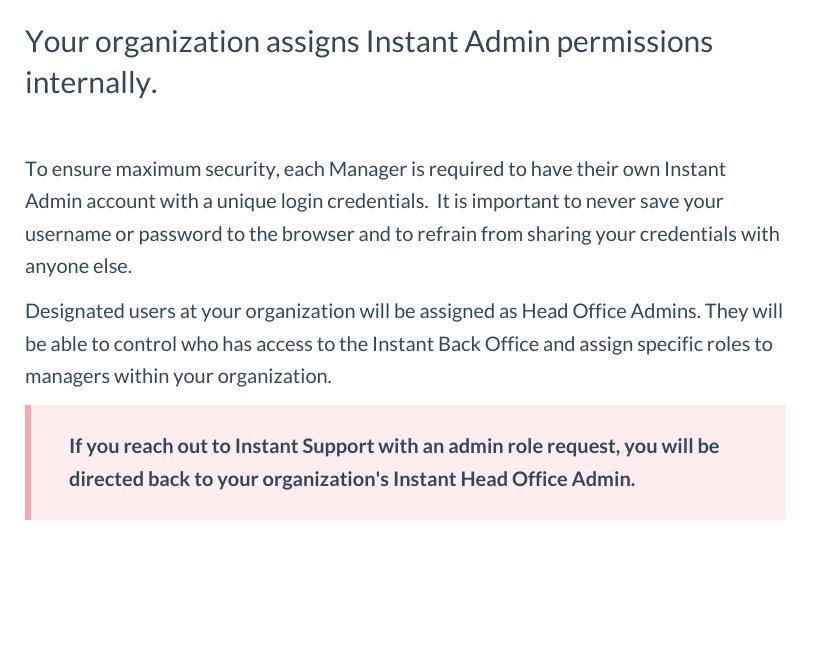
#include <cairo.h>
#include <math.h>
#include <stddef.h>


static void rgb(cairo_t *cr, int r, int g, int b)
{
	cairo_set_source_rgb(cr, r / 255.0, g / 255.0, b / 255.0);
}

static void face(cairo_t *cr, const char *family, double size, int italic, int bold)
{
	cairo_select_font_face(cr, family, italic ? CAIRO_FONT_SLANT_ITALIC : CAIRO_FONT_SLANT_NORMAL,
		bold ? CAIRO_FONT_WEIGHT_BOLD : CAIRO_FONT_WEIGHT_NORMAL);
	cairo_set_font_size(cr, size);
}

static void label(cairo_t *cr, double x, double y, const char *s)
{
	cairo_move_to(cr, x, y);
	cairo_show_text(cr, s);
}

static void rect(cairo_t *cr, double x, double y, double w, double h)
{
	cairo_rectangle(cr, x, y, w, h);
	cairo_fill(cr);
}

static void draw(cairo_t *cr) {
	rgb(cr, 255, 255, 255);
	cairo_paint(cr);
	face(cr, "Lato", 30, 0, 0);
	rgb(cr, 51, 71, 91);
	label(cr, 25, 52, "Your organization assigns Instant Admin permissions");
	label(cr, 25, 93, "internally.");
	face(cr, "Lato", 20, 0, 0);
	label(cr, 25, 176, "To ensure maximum security, each Manager is required to have their own Instant");
	label(cr, 25, 208, "Admin account with a unique login credentials.  It is important to never save your");
	label(cr, 25, 241, "username or password to the browser and to refrain from sharing your credentials with");
	label(cr, 25, 273, "anyone else.");
	label(cr, 25, 318, "Designated users at your organization will be assigned as Head Office Admins. They will");
	label(cr, 25, 351, "be able to control who has access to the Instant Back Office and assign specific roles to");
	label(cr, 25, 383, "managers within your organization.");
	rgb(cr, 253, 237, 238);
	rect(cr, 31, 405, 755, 115);
	rgb(cr, 248, 169, 173);
	rect(cr, 25, 405, 6, 115);
	face(cr, "Lato", 20, 0, 1);
	rgb(cr, 51, 71, 91);
	label(cr, 69, 453, "If you reach out to Instant Support with an admin role request, you will be");
	label(cr, 69, 486, "directed back to your organization's Instant Head Office Admin.");
}

int main(void) {
	cairo_surface_t *surface = cairo_image_surface_create(CAIRO_FORMAT_RGB24, 823, 657);
	cairo_t *cr = cairo_create(surface);
	cairo_font_options_t *options = cairo_font_options_create();
	cairo_font_options_set_hint_metrics(options, CAIRO_HINT_METRICS_OFF);
	cairo_font_options_set_hint_style(options, CAIRO_HINT_STYLE_NONE);
	cairo_set_font_options(cr, options);
	cairo_set_miter_limit(cr, 4);
	draw(cr);
	cairo_surface_write_to_png(surface, "render.png");
	cairo_font_options_destroy(options);
	cairo_destroy(cr);
	cairo_surface_destroy(surface);
	return 0;
}
